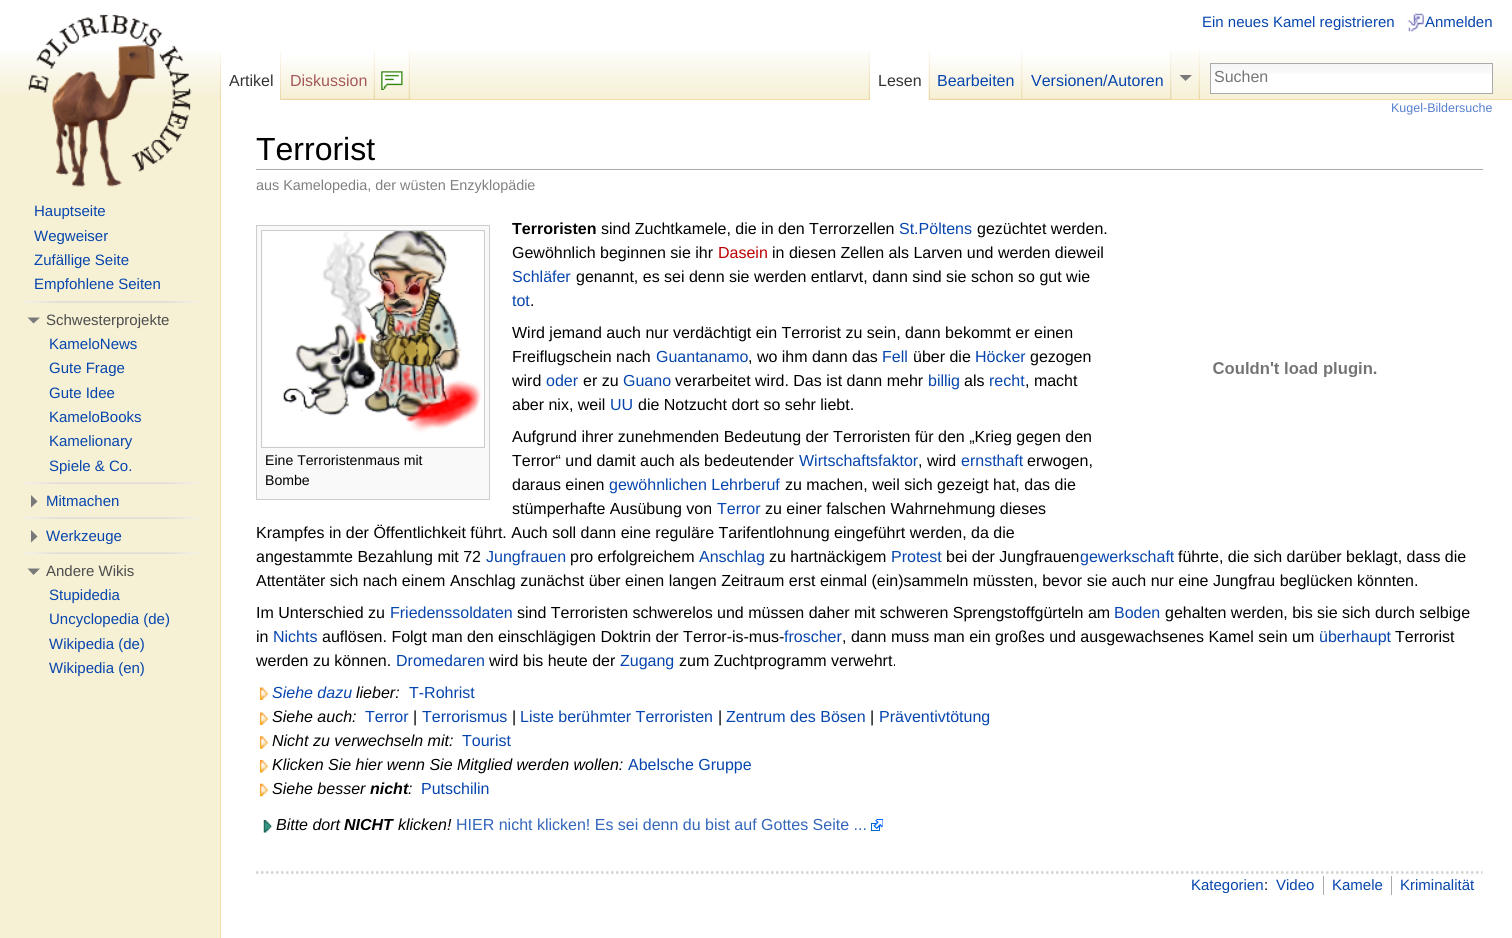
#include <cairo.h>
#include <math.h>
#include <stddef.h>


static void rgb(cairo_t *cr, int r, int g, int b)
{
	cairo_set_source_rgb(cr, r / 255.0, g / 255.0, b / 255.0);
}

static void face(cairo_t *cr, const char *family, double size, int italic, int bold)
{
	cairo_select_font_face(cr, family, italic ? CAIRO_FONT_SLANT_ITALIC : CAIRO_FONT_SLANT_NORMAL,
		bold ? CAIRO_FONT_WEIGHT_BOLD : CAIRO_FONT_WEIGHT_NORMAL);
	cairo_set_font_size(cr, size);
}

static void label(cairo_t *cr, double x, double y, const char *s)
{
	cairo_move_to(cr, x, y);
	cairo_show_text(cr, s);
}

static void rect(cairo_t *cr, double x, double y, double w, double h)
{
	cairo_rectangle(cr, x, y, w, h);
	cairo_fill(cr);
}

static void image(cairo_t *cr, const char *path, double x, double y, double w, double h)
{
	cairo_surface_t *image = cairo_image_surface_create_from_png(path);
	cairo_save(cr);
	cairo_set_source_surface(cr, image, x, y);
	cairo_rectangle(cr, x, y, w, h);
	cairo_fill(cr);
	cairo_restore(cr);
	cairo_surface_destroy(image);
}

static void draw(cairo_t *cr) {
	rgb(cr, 246, 240, 212);
	cairo_paint(cr);
	rgb(cr, 255, 255, 255);
	rect(cr, 0, 0, 1512, 51);
	image(cr, "image0.png", 0, 51, 1512, 49);
	face(cr, "Liberation Sans", 15, 0, 0);
	rgb(cr, 6, 69, 173);
	label(cr, 1202, 27, "Ein neues Kamel registrieren");
	image(cr, "image1.png", 1407, 13, 17, 19);
	label(cr, 1425, 27, "Anmelden");
	rgb(cr, 249, 223, 167);
	rect(cr, 220, 99, 1, 839);
	image(cr, "image2.png", 220, 50, 1, 50);
	rgb(cr, 255, 255, 255);
	rect(cr, 221, 51, 61, 49);
	image(cr, "image3.png", 280, 50, 2, 50);
	face(cr, "Liberation Sans", 16, 0, 0);
	rgb(cr, 51, 51, 51);
	label(cr, 229, 86, "Artikel");
	image(cr, "image4.png", 281, 50, 94, 50);
	image(cr, "image5.png", 373, 50, 2, 49);
	rgb(cr, 165, 88, 88);
	label(cr, 290, 86, "Diskussion");
	image(cr, "image6.png", 375, 50, 35, 50);
	image(cr, "image7.png", 408, 50, 2, 49);
	image(cr, "image8.png", 381, 71, 22, 19);
	rgb(cr, 249, 223, 167);
	rect(cr, 410, 99, 1102, 1);
	image(cr, "image9.png", 868, 50, 2, 50);
	image(cr, "image10.png", 1171, 50, 1, 50);
	rgb(cr, 255, 255, 255);
	rect(cr, 870, 51, 59, 49);
	image(cr, "image11.png", 928, 50, 2, 50);
	rgb(cr, 51, 51, 51);
	label(cr, 878, 86, "Lesen");
	image(cr, "image12.png", 930, 50, 93, 50);
	image(cr, "image13.png", 1021, 50, 2, 50);
	rgb(cr, 6, 69, 173);
	label(cr, 937, 86, "Bearbeiten");
	image(cr, "image14.png", 1022, 50, 150, 50);
	image(cr, "image15.png", 1170, 50, 2, 50);
	label(cr, 1031, 86, "Versionen/Autoren");
	rgb(cr, 121, 121, 121);
	cairo_new_path(cr);
	cairo_move_to(cr, 1192, 75);
	cairo_line_to(cr, 1185.5, 81);
	cairo_line_to(cr, 1179.5, 75);
	cairo_close_path(cr);
	cairo_fill(cr);
	image(cr, "image16.png", 1198, 50, 2, 50);
	rgb(cr, 255, 255, 255);
	rect(cr, 1211, 74, 281, 19);
	image(cr, "image17.png", 1211, 64, 281, 10);
	cairo_rectangle(cr, 1210.5, 63.5, 282, 30);
	rgb(cr, 170, 170, 170);
	cairo_set_line_width(cr, 1);
	cairo_stroke(cr);
	rgb(cr, 117, 117, 117);
	label(cr, 1214, 82, "Suchen");
	rgb(cr, 255, 255, 255);
	rect(cr, 221, 100, 1291, 838);
	face(cr, "Liberation Sans", 12.5, 0, 0);
	rgb(cr, 87, 127, 207);
	label(cr, 1391, 112, "Kugel-Bildersuche");
	image(cr, "image18.png", 28, 14, 164, 173);
	face(cr, "Liberation Sans", 15, 0, 0);
	rgb(cr, 6, 69, 173);
	label(cr, 34, 216, "Hauptseite");
	label(cr, 34, 241, "Wegweiser");
	label(cr, 34, 265, "Zufällige Seite");
	label(cr, 34, 289, "Empfohlene Seiten");
	image(cr, "image19.png", 23, 301, 176, 2);
	rgb(cr, 121, 121, 121);
	cairo_new_path(cr);
	cairo_move_to(cr, 40, 317.5);
	cairo_line_to(cr, 33.5, 323.5);
	cairo_line_to(cr, 27.5, 317.5);
	cairo_close_path(cr);
	cairo_fill(cr);
	rgb(cr, 77, 77, 77);
	label(cr, 46, 325, "Schwesterprojekte");
	rgb(cr, 6, 69, 173);
	label(cr, 49, 349, "KameloNews");
	label(cr, 49, 373, "Gute Frage");
	label(cr, 49, 398, "Gute Idee");
	label(cr, 49, 422, "KameloBooks");
	label(cr, 49, 446, "Kamelionary");
	label(cr, 49, 471, "Spiele & Co.");
	image(cr, "image20.png", 23, 482, 176, 2);
	rgb(cr, 121, 121, 121);
	cairo_new_path(cr);
	cairo_move_to(cr, 31, 495);
	cairo_line_to(cr, 37.5, 501.5);
	cairo_line_to(cr, 31, 507.5);
	cairo_close_path(cr);
	cairo_fill(cr);
	rgb(cr, 6, 69, 173);
	label(cr, 46, 506, "Mitmachen");
	image(cr, "image20.png", 23, 517, 176, 2);
	rgb(cr, 121, 121, 121);
	cairo_new_path(cr);
	cairo_move_to(cr, 31, 530);
	cairo_line_to(cr, 37.5, 536.5);
	cairo_line_to(cr, 31, 542.5);
	cairo_close_path(cr);
	cairo_fill(cr);
	rgb(cr, 6, 69, 173);
	label(cr, 46, 541, "Werkzeuge");
	image(cr, "image20.png", 23, 552, 176, 2);
	rgb(cr, 121, 121, 121);
	cairo_new_path(cr);
	cairo_move_to(cr, 40, 568.5);
	cairo_line_to(cr, 33.5, 575);
	cairo_line_to(cr, 27.5, 568.5);
	cairo_close_path(cr);
	cairo_fill(cr);
	rgb(cr, 77, 77, 77);
	label(cr, 46, 576, "Andere Wikis");
	rgb(cr, 6, 69, 173);
	label(cr, 49, 600, "Stupidedia");
	label(cr, 49, 624, "Uncyclopedia (de)");
	label(cr, 49, 649, "Wikipedia (de)");
	label(cr, 49, 673, "Wikipedia (en)");
	rgb(cr, 170, 170, 170);
	rect(cr, 256, 169, 1227, 1);
	face(cr, "Liberation Sans", 32, 0, 0);
	rgb(cr, 0, 0, 0);
	label(cr, 256, 160, "Terrorist");
	face(cr, "Liberation Sans", 14.4, 0, 0);
	rgb(cr, 128, 128, 128);
	label(cr, 256, 190, "aus Kamelopedia, der wüsten Enzyklopädie");
	face(cr, "Liberation Sans", 16, 0, 1);
	rgb(cr, 0, 0, 0);
	label(cr, 512, 234, "Terroristen");
	face(cr, "Liberation Sans", 16, 0, 0);
	label(cr, 601, 234, "sind Zuchtkamele, die in den Terrorzellen");
	rgb(cr, 6, 69, 173);
	label(cr, 899, 234, "St.Pöltens");
	rgb(cr, 0, 0, 0);
	label(cr, 977, 234, "gezüchtet werden.");
	label(cr, 512, 258, "Gewöhnlich beginnen sie ihr");
	rgb(cr, 186, 0, 0);
	label(cr, 718, 258, "Dasein");
	rgb(cr, 0, 0, 0);
	label(cr, 772, 258, "in diesen Zellen als Larven und werden dieweil");
	rgb(cr, 6, 69, 173);
	label(cr, 512, 282, "Schläfer");
	rgb(cr, 0, 0, 0);
	label(cr, 576, 282, "genannt, es sei denn sie werden entlarvt, dann sind sie schon so gut wie");
	rgb(cr, 6, 69, 173);
	label(cr, 512, 306, "tot");
	rgb(cr, 0, 0, 0);
	label(cr, 530, 306, ".");
	label(cr, 512, 338, "Wird jemand auch nur verdächtigt ein Terrorist zu sein, dann bekommt er einen");
	label(cr, 512, 362, "Freiflugschein nach");
	rgb(cr, 6, 69, 173);
	label(cr, 656, 362, "Guantanamo");
	rgb(cr, 0, 0, 0);
	label(cr, 748, 362, ", wo ihm dann das");
	rgb(cr, 6, 69, 173);
	label(cr, 882, 362, "Fell");
	rgb(cr, 0, 0, 0);
	label(cr, 913, 362, "über die");
	rgb(cr, 6, 69, 173);
	label(cr, 975, 362, "Höcker");
	rgb(cr, 0, 0, 0);
	label(cr, 1030, 362, "gezogen");
	label(cr, 512, 386, "wird");
	rgb(cr, 6, 69, 173);
	label(cr, 546, 386, "oder");
	rgb(cr, 0, 0, 0);
	label(cr, 583, 386, "er zu");
	rgb(cr, 6, 69, 173);
	label(cr, 623, 386, "Guano");
	rgb(cr, 0, 0, 0);
	label(cr, 675, 386, "verarbeitet wird. Das ist dann mehr");
	rgb(cr, 6, 69, 173);
	label(cr, 928, 386, "billig");
	rgb(cr, 0, 0, 0);
	label(cr, 964, 386, "als");
	rgb(cr, 6, 69, 173);
	label(cr, 989, 386, "recht");
	rgb(cr, 0, 0, 0);
	label(cr, 1025, 386, ", macht");
	label(cr, 512, 410, "aber nix, weil");
	rgb(cr, 6, 69, 173);
	label(cr, 610, 410, "UU");
	rgb(cr, 0, 0, 0);
	label(cr, 638, 410, "die Notzucht dort so sehr liebt.");
	image(cr, "image21.png", 1213, 362, 164, 15);
	label(cr, 512, 442, "Aufgrund ihrer zunehmenden Bedeutung der Terroristen für den „Krieg gegen den");
	label(cr, 512, 466, "Terror“ und damit auch als bedeutender");
	rgb(cr, 6, 69, 173);
	label(cr, 799, 466, "Wirtschaftsfaktor");
	rgb(cr, 0, 0, 0);
	label(cr, 918, 466, ", wird");
	rgb(cr, 6, 69, 173);
	label(cr, 961, 466, "ernsthaft");
	rgb(cr, 0, 0, 0);
	label(cr, 1027, 466, "erwogen,");
	label(cr, 512, 490, "daraus einen");
	rgb(cr, 6, 69, 173);
	label(cr, 609, 490, "gewöhnlichen Lehrberuf");
	rgb(cr, 0, 0, 0);
	label(cr, 785, 490, "zu machen, weil sich gezeigt hat, das die");
	label(cr, 512, 514, "stümperhafte Ausübung von");
	rgb(cr, 6, 69, 173);
	label(cr, 717, 514, "Terror");
	rgb(cr, 0, 0, 0);
	label(cr, 765, 514, "zu einer falschen Wahrnehmung dieses");
	label(cr, 256, 538, "Krampfes in der Öffentlichkeit führt. Auch soll dann eine reguläre Tarifentlohnung eingeführt werden, da die");
	label(cr, 256, 562, "angestammte Bezahlung mit 72");
	rgb(cr, 6, 69, 173);
	label(cr, 486, 562, "Jungfrauen");
	rgb(cr, 0, 0, 0);
	label(cr, 570, 562, "pro erfolgreichem");
	rgb(cr, 6, 69, 173);
	label(cr, 699, 562, "Anschlag");
	rgb(cr, 0, 0, 0);
	label(cr, 769, 562, "zu hartnäckigem");
	rgb(cr, 6, 69, 173);
	label(cr, 891, 562, "Protest");
	rgb(cr, 0, 0, 0);
	label(cr, 946, 562, "bei der Jungfrauen");
	rgb(cr, 6, 69, 173);
	label(cr, 1080, 562, "gewerkschaft");
	rgb(cr, 0, 0, 0);
	label(cr, 1178, 562, "führte, die sich darüber beklagt, dass die");
	label(cr, 256, 586, "Attentäter sich nach einem Anschlag zunächst über einen langen Zeitraum erst einmal (ein)sammeln müssten, bevor sie auch nur eine Jungfrau beglücken könnten.");
	rgb(cr, 249, 249, 249);
	cairo_rectangle(cr, 256.5, 225.5, 233, 274);
	cairo_fill_preserve(cr);
	rgb(cr, 204, 204, 204);
	cairo_stroke(cr);
	cairo_rectangle(cr, 261.5, 230.5, 223, 217);
	cairo_stroke(cr);
	image(cr, "image22.png", 263, 231, 221, 215);
	face(cr, "Liberation Sans", 14.1, 0, 0);
	rgb(cr, 0, 0, 0);
	label(cr, 265, 465, "Eine Terroristenmaus mit");
	label(cr, 265, 485, "Bombe");
	face(cr, "Liberation Sans", 16, 0, 0);
	label(cr, 256, 618, "Im Unterschied zu");
	rgb(cr, 6, 69, 173);
	label(cr, 390, 618, "Friedenssoldaten");
	rgb(cr, 0, 0, 0);
	label(cr, 517, 618, "sind Terroristen schwerelos und müssen daher mit schweren Sprengstoffgürteln am");
	rgb(cr, 6, 69, 173);
	label(cr, 1114, 618, "Boden");
	rgb(cr, 0, 0, 0);
	label(cr, 1165, 618, "gehalten werden, bis sie sich durch selbige");
	label(cr, 256, 642, "in");
	rgb(cr, 6, 69, 173);
	label(cr, 273, 642, "Nichts");
	rgb(cr, 0, 0, 0);
	label(cr, 322, 642, "auflösen. Folgt man den einschlägigen Doktrin der Terror-is-mus-");
	rgb(cr, 6, 69, 173);
	label(cr, 784, 642, "froscher");
	rgb(cr, 0, 0, 0);
	label(cr, 842, 642, ", dann muss man ein großes und ausgewachsenes Kamel sein um");
	rgb(cr, 6, 69, 173);
	label(cr, 1319, 642, "überhaupt");
	rgb(cr, 0, 0, 0);
	label(cr, 1395, 642, "Terrorist");
	label(cr, 256, 666, "werden zu können.");
	rgb(cr, 6, 69, 173);
	label(cr, 396, 666, "Dromedaren");
	rgb(cr, 0, 0, 0);
	label(cr, 489, 666, "wird bis heute der");
	rgb(cr, 6, 69, 173);
	label(cr, 620, 666, "Zugang");
	rgb(cr, 0, 0, 0);
	label(cr, 679, 666, "zum Zuchtprogramm verwehrt.");
	image(cr, "image23.png", 259, 687, 9, 13);
	face(cr, "Liberation Sans", 16, 1, 0);
	rgb(cr, 6, 69, 173);
	label(cr, 272, 698, "Siehe dazu");
	rgb(cr, 0, 0, 0);
	label(cr, 356, 698, "lieber:");
	face(cr, "Liberation Sans", 16, 0, 0);
	rgb(cr, 6, 69, 173);
	label(cr, 409, 698, "T-Rohrist");
	image(cr, "image23.png", 259, 712, 9, 13);
	face(cr, "Liberation Sans", 16, 1, 0);
	rgb(cr, 0, 0, 0);
	label(cr, 272, 722, "Siehe auch:");
	face(cr, "Liberation Sans", 16, 0, 0);
	rgb(cr, 6, 69, 173);
	label(cr, 365, 722, "Terror");
	rgb(cr, 0, 0, 0);
	label(cr, 413, 722, "|");
	rgb(cr, 6, 69, 173);
	label(cr, 422, 722, "Terrorismus");
	rgb(cr, 0, 0, 0);
	label(cr, 512, 722, "|");
	rgb(cr, 6, 69, 173);
	label(cr, 520, 722, "Liste berühmter Terroristen");
	rgb(cr, 0, 0, 0);
	label(cr, 718, 722, "|");
	rgb(cr, 6, 69, 173);
	label(cr, 726, 722, "Zentrum des Bösen");
	rgb(cr, 0, 0, 0);
	label(cr, 870, 722, "|");
	rgb(cr, 6, 69, 173);
	label(cr, 879, 722, "Präventivtötung");
	image(cr, "image24.png", 259, 736, 9, 13);
	face(cr, "Liberation Sans", 16, 1, 0);
	rgb(cr, 0, 0, 0);
	label(cr, 272, 746, "Nicht zu verwechseln mit:");
	face(cr, "Liberation Sans", 16, 0, 0);
	rgb(cr, 6, 69, 173);
	label(cr, 462, 746, "Tourist");
	image(cr, "image25.png", 259, 760, 9, 13);
	face(cr, "Liberation Sans", 16, 1, 0);
	rgb(cr, 0, 0, 0);
	label(cr, 272, 770, "Klicken Sie hier wenn Sie Mitglied werden wollen:");
	face(cr, "Liberation Sans", 16, 0, 0);
	rgb(cr, 6, 69, 173);
	label(cr, 628, 770, "Abelsche Gruppe");
	image(cr, "image26.png", 259, 783, 9, 14);
	face(cr, "Liberation Sans", 16, 1, 0);
	rgb(cr, 0, 0, 0);
	label(cr, 272, 794, "Siehe besser");
	face(cr, "Liberation Sans", 16, 1, 1);
	label(cr, 370, 794, "nicht");
	face(cr, "Liberation Sans", 16, 1, 0);
	label(cr, 408, 794, ":");
	face(cr, "Liberation Sans", 16, 0, 0);
	rgb(cr, 6, 69, 173);
	label(cr, 421, 794, "Putschilin");
	image(cr, "image27.png", 263, 820, 9, 13);
	face(cr, "Liberation Sans", 16, 1, 0);
	rgb(cr, 0, 0, 0);
	label(cr, 276, 830, "Bitte dort");
	face(cr, "Liberation Sans", 16, 1, 1);
	label(cr, 344, 830, "NICHT");
	face(cr, "Liberation Sans", 16, 1, 0);
	label(cr, 398, 830, "klicken!");
	face(cr, "Liberation Sans", 16, 0, 0);
	rgb(cr, 51, 102, 187);
	label(cr, 456, 830, "HIER nicht klicken! Es sei denn du bist auf Gottes Seite ...");
	image(cr, "image28.png", 871, 819, 12, 12);
	cairo_new_path(cr);
	cairo_move_to(cr, 256, 872.5);
	cairo_line_to(cr, 1482.5, 872.5);
	rgb(cr, 211, 211, 211);
	cairo_set_line_width(cr, 2.5);
	cairo_set_dash(cr, (double[]){2.5, 2.5}, 2, 0);
	cairo_stroke(cr);
	face(cr, "Liberation Sans", 15, 0, 0);
	rgb(cr, 6, 69, 173);
	label(cr, 1191, 890, "Kategorien");
	rgb(cr, 0, 0, 0);
	label(cr, 1264, 890, ":");
	rgb(cr, 6, 69, 173);
	label(cr, 1276, 890, "Video");
	rgb(cr, 170, 170, 170);
	rect(cr, 1323, 876, 1, 19);
	rgb(cr, 6, 69, 173);
	label(cr, 1332, 890, "Kamele");
	rgb(cr, 170, 170, 170);
	rect(cr, 1391, 876, 1, 19);
	rgb(cr, 6, 69, 173);
	label(cr, 1400, 890, "Kriminalität");
}

int main(void) {
	cairo_surface_t *surface = cairo_image_surface_create(CAIRO_FORMAT_RGB24, 1512, 938);
	cairo_t *cr = cairo_create(surface);
	cairo_font_options_t *options = cairo_font_options_create();
	cairo_font_options_set_hint_metrics(options, CAIRO_HINT_METRICS_OFF);
	cairo_font_options_set_hint_style(options, CAIRO_HINT_STYLE_NONE);
	cairo_set_font_options(cr, options);
	cairo_set_miter_limit(cr, 4);
	draw(cr);
	cairo_surface_write_to_png(surface, "render.png");
	cairo_font_options_destroy(options);
	cairo_destroy(cr);
	cairo_surface_destroy(surface);
	return 0;
}
